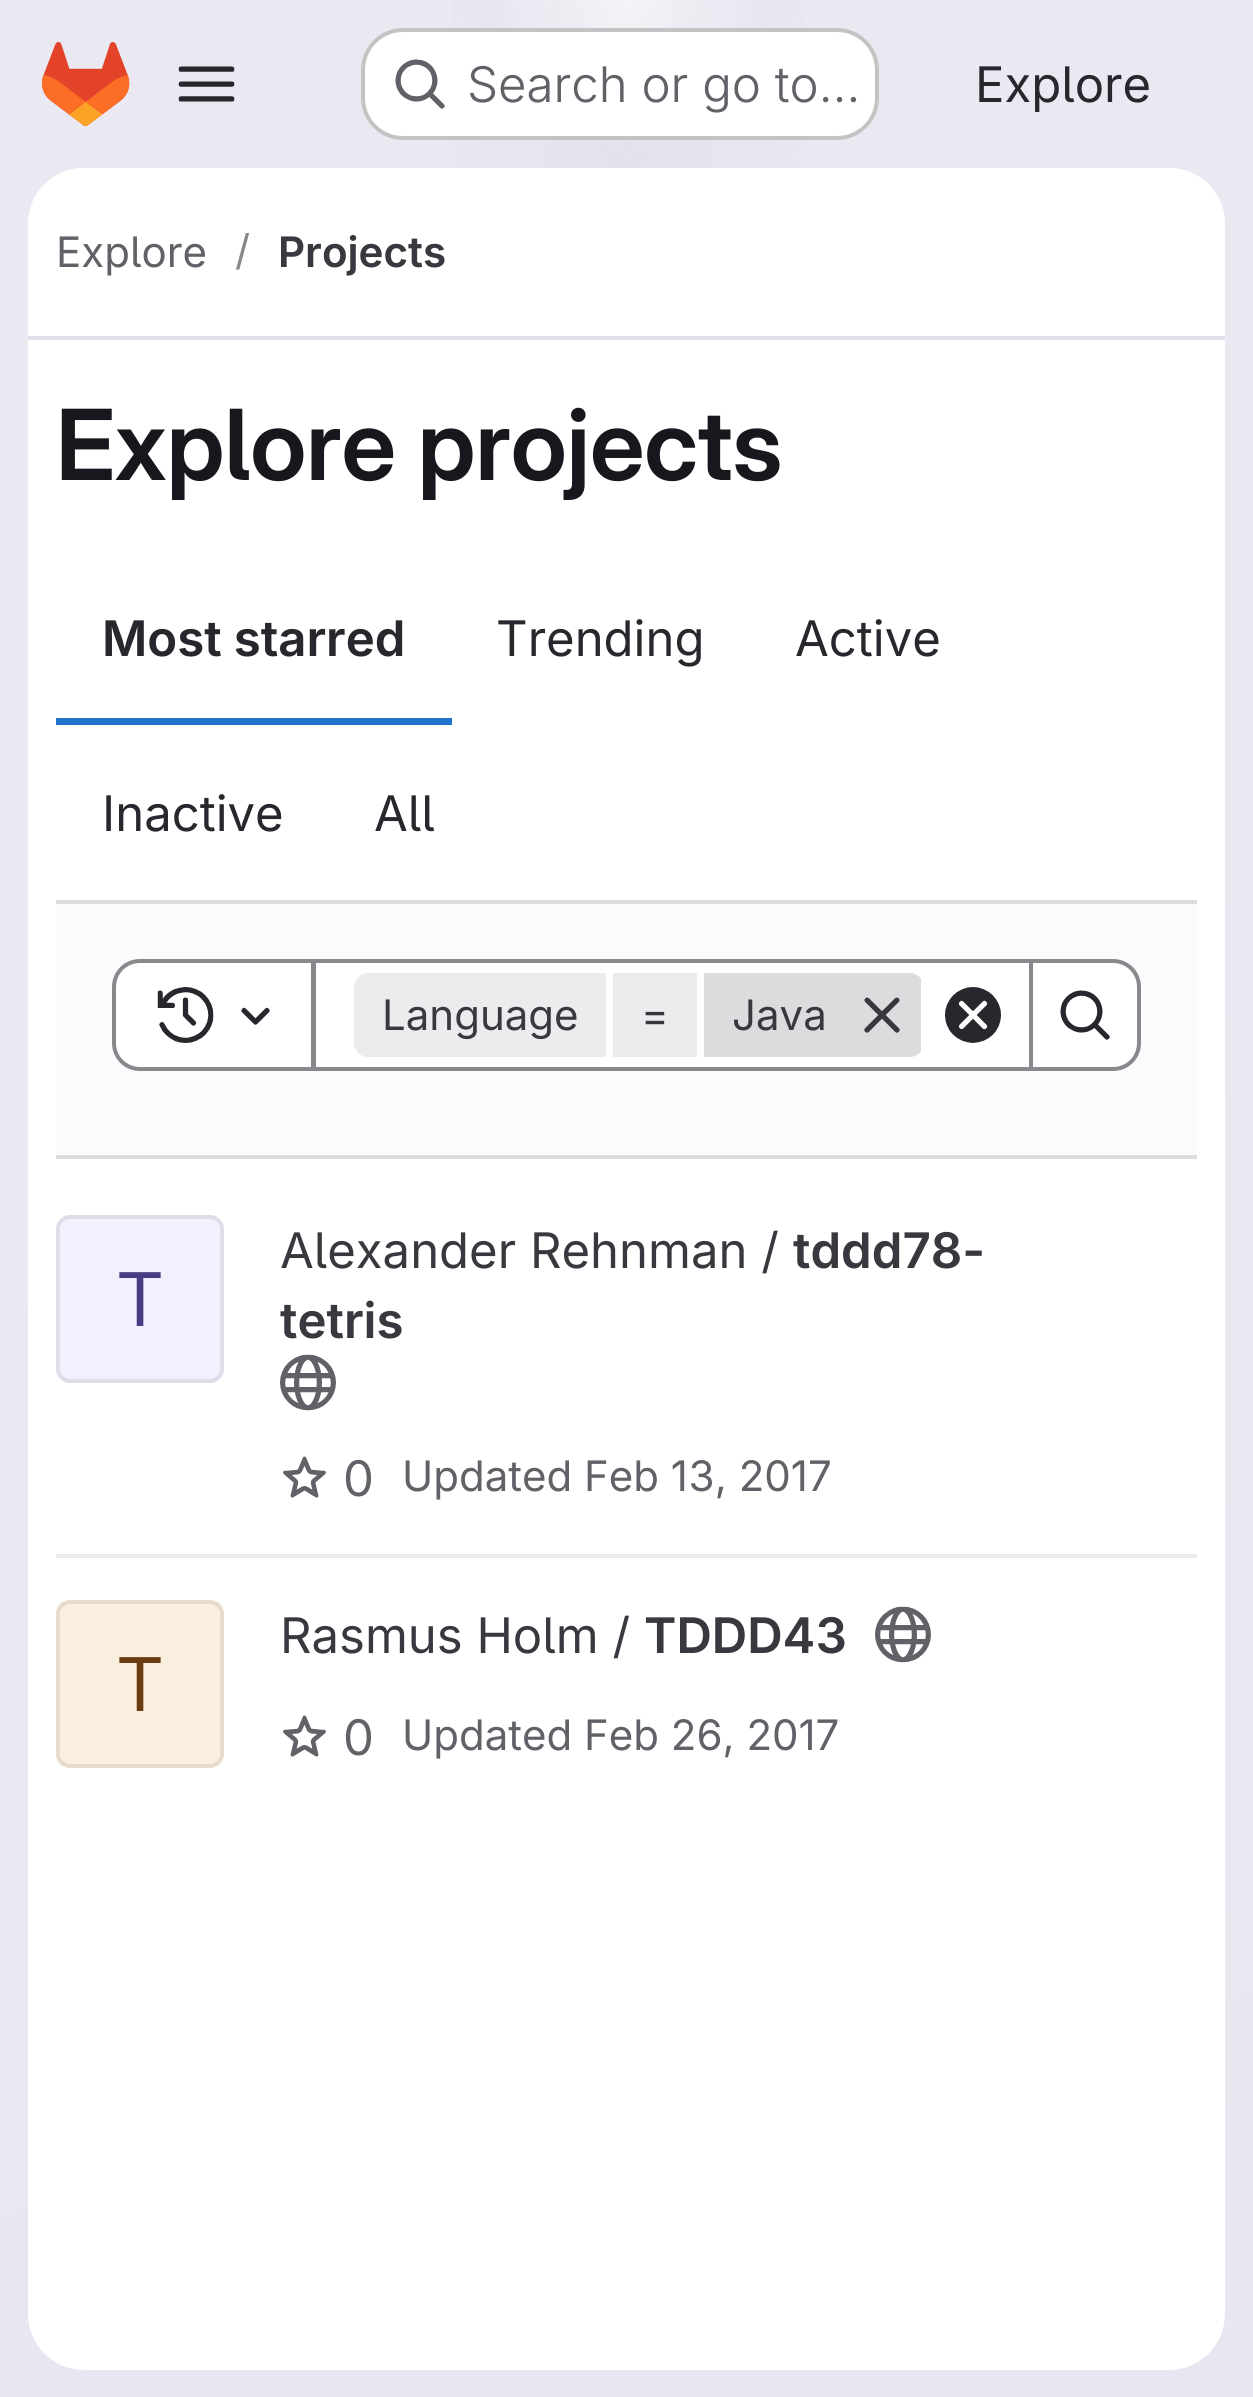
#include <cairo.h>
#include <math.h>
#include <stddef.h>


static void rgb(cairo_t *cr, int r, int g, int b)
{
	cairo_set_source_rgb(cr, r / 255.0, g / 255.0, b / 255.0);
}

static void face(cairo_t *cr, const char *family, double size, int italic, int bold)
{
	cairo_select_font_face(cr, family, italic ? CAIRO_FONT_SLANT_ITALIC : CAIRO_FONT_SLANT_NORMAL,
		bold ? CAIRO_FONT_WEIGHT_BOLD : CAIRO_FONT_WEIGHT_NORMAL);
	cairo_set_font_size(cr, size);
}

static void label(cairo_t *cr, double x, double y, const char *s)
{
	cairo_move_to(cr, x, y);
	cairo_show_text(cr, s);
}

static void rect(cairo_t *cr, double x, double y, double w, double h)
{
	cairo_rectangle(cr, x, y, w, h);
	cairo_fill(cr);
}

static void rrect(cairo_t *cr, double x, double y, double w, double h, double r)
{
	cairo_new_sub_path(cr);
	cairo_arc(cr, x + w - r, y + h - r, r, 0, M_PI / 2);
	cairo_arc(cr, x + r, y + h - r, r, M_PI / 2, M_PI);
	cairo_arc(cr, x + r, y + r, r, M_PI, 1.5 * M_PI);
	cairo_arc(cr, x + w - r, y + r, r, 1.5 * M_PI, 2 * M_PI);
	cairo_close_path(cr);
}

static void image(cairo_t *cr, const char *path, double x, double y, double w, double h)
{
	cairo_surface_t *image = cairo_image_surface_create_from_png(path);
	cairo_save(cr);
	cairo_set_source_surface(cr, image, x, y);
	cairo_rectangle(cr, x, y, w, h);
	cairo_fill(cr);
	cairo_restore(cr);
	cairo_surface_destroy(image);
}

static void draw(cairo_t *cr) {
	cairo_pattern_t *gradient;
	rgb(cr, 255, 255, 255);
	cairo_paint(cr);
	gradient = cairo_pattern_create_linear(850, 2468, 403, -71);
	cairo_pattern_add_color_stop_rgba(gradient, 0, 0.91, 0.902, 0.941, 1);
	cairo_pattern_add_color_stop_rgba(gradient, 0.7, 0.918, 0.914, 0.949, 1);
	cairo_set_source(cr, gradient);
	cairo_pattern_destroy(gradient);
	rect(cr, 0, 0, 1253, 2397);
	gradient = cairo_pattern_create_radial(0, 0, 0, 0, 0, 1);
	cairo_pattern_set_matrix(gradient, &(cairo_matrix_t){1.0 / 627, 0, 0, 1.0 / 2398, -1.0 * 627 / 627, -1.0 * 0 / 2398});
	cairo_pattern_add_color_stop_rgba(gradient, 0, 0.894, 0.886, 0.929, 1);
	cairo_pattern_add_color_stop_rgba(gradient, 0.39, 0.894, 0.886, 0.929, 0);
	cairo_set_source(cr, gradient);
	cairo_pattern_destroy(gradient);
	rect(cr, 451, 0, 352, 168);
	gradient = cairo_pattern_create_radial(0, 0, 0, 0, 0, 1);
	cairo_pattern_set_matrix(gradient, &(cairo_matrix_t){1.0 / 627, 0, 0, 1.0 / 2398, -1.0 * 627 / 627, -1.0 * 0 / 2398});
	cairo_pattern_add_color_stop_rgba(gradient, 0, 0.894, 0.886, 0.925, 1);
	cairo_pattern_add_color_stop_rgba(gradient, 0.28, 0.894, 0.886, 0.925, 0);
	cairo_set_source(cr, gradient);
	cairo_pattern_destroy(gradient);
	rect(cr, 555, 0, 155, 168);
	gradient = cairo_pattern_create_radial(627, 0, 0, 627, 0, 2478);
	cairo_pattern_add_color_stop_rgba(gradient, 0, 1, 1, 1, 0.6);
	cairo_pattern_add_color_stop_rgba(gradient, 0.06, 1, 1, 1, 0);
	cairo_set_source(cr, gradient);
	cairo_pattern_destroy(gradient);
	rect(cr, 501, 0, 252, 28);
	image(cr, "image0.png", 42, 42, 88, 84);
	image(cr, "image1.png", 178, 66, 57, 36);
	rgb(cr, 255, 255, 255);
	rrect(cr, 361, 28, 518, 112, 42);
	cairo_fill(cr);
	rrect(cr, 363, 30, 514, 108, 40);
	cairo_set_source_rgba(cr, 0.02, 0.02, 0.024, 0.24);
	cairo_set_line_width(cr, 4);
	cairo_stroke(cr);
	image(cr, "image2.png", 395, 59, 50, 50);
	face(cr, "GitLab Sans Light", 49, 0, 0);
	rgb(cr, 98, 97, 104);
	label(cr, 467, 102, "Search or go to…");
	face(cr, "GitLab Sans", 49, 0, 0);
	rgb(cr, 40, 39, 45);
	label(cr, 975, 102, "Explore");
	rgb(cr, 255, 255, 255);
	rrect(cr, 28, 168, 1197, 2202, 56);
	cairo_fill(cr);
	cairo_new_path(cr);
	cairo_move_to(cr, 84, 168);
	cairo_line_to(cr, 1169, 168);
	cairo_curve_to(cr, 1200, 168, 1225, 193, 1225, 224);
	cairo_line_to(cr, 1225, 340);
	cairo_line_to(cr, 28, 340);
	cairo_line_to(cr, 28, 224);
	cairo_curve_to(cr, 28, 193, 53, 168, 84, 168);
	cairo_close_path(cr);
	cairo_fill(cr);
	rgb(cr, 225, 223, 236);
	rect(cr, 28, 336, 1197, 4);
	face(cr, "GitLab Sans", 42, 0, 0);
	rgb(cr, 98, 97, 104);
	label(cr, 56, 267, "Explore");
	rgb(cr, 137, 136, 141);
	label(cr, 235, 265, "/");
	face(cr, "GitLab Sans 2 SemiBold", 42, 0, 0);
	rgb(cr, 58, 56, 63);
	label(cr, 278, 267, "Projects");
	face(cr, "GitLab Sans SemiBold", 98, 0, 0);
	rgb(cr, 24, 23, 29);
	label(cr, 56, 480, "Explore projects");
	face(cr, "GitLab Sans 2 SemiBold", 49, 0, 0);
	rgb(cr, 40, 39, 45);
	label(cr, 102, 656, "Most starred");
	rgb(cr, 31, 117, 203);
	rect(cr, 56, 718, 396, 7);
	face(cr, "GitLab Sans", 49, 0, 0);
	rgb(cr, 40, 39, 45);
	label(cr, 496, 656, "Trending");
	label(cr, 795, 656, "Active");
	label(cr, 102, 831, "Inactive");
	label(cr, 374, 831, "All");
	rgb(cr, 251, 250, 253);
	rect(cr, 56, 904, 1141, 251);
	rgb(cr, 220, 220, 222);
	rect(cr, 56, 900, 1141, 4);
	rect(cr, 56, 1155, 1141, 4);
	rgb(cr, 255, 255, 255);
	cairo_rectangle(cr, 314, 961, 717, 108);
	cairo_fill_preserve(cr);
	rgb(cr, 137, 136, 141);
	cairo_stroke(cr);
	rgb(cr, 255, 255, 255);
	cairo_new_path(cr);
	cairo_move_to(cr, 140, 961);
	cairo_line_to(cr, 313, 961);
	cairo_line_to(cr, 313, 1069);
	cairo_line_to(cr, 140, 1069);
	cairo_curve_to(cr, 125.5, 1069, 114, 1057.5, 114, 1043);
	cairo_line_to(cr, 114, 987);
	cairo_curve_to(cr, 114, 972.5, 125.5, 961, 140, 961);
	cairo_close_path(cr);
	cairo_fill_preserve(cr);
	rgb(cr, 137, 136, 141);
	cairo_stroke(cr);
	image(cr, "image3.png", 157, 987, 57, 56);
	image(cr, "image4.png", 241, 1007, 29, 18);
	rgb(cr, 236, 236, 239);
	cairo_new_path(cr);
	cairo_move_to(cr, 368, 973);
	cairo_line_to(cr, 606, 973);
	cairo_line_to(cr, 606, 1057);
	cairo_line_to(cr, 368, 1057);
	cairo_curve_to(cr, 360.5, 1057, 354, 1050.5, 354, 1043);
	cairo_line_to(cr, 354, 987);
	cairo_curve_to(cr, 354, 979.5, 360.5, 973, 368, 973);
	cairo_close_path(cr);
	cairo_fill(cr);
	face(cr, "GitLab Sans", 42, 0, 0);
	rgb(cr, 58, 56, 63);
	label(cr, 382, 1030, "Language");
	rgb(cr, 236, 236, 239);
	rect(cr, 613, 973, 84, 84);
	rgb(cr, 58, 56, 63);
	label(cr, 641, 1030, "=");
	cairo_save(cr);
	cairo_rectangle(cr, 354, 973, 567, 84);
	cairo_clip(cr);
	rgb(cr, 220, 220, 222);
	cairo_new_path(cr);
	cairo_move_to(cr, 704, 973);
	cairo_line_to(cr, 910, 973);
	cairo_curve_to(cr, 917.5, 973, 924, 979.5, 924, 987);
	cairo_line_to(cr, 924, 1043);
	cairo_curve_to(cr, 924, 1050.5, 917.5, 1057, 910, 1057);
	cairo_line_to(cr, 704, 1057);
	cairo_close_path(cr);
	cairo_fill(cr);
	cairo_restore(cr);
	label(cr, 732, 1030, "Java");
	image(cr, "image5.png", 864, 997, 36, 36);
	image(cr, "image6.png", 945, 987, 56, 56);
	rgb(cr, 255, 255, 255);
	cairo_new_path(cr);
	cairo_move_to(cr, 1031, 961);
	cairo_line_to(cr, 1113, 961);
	cairo_curve_to(cr, 1127.5, 961, 1139, 972.5, 1139, 987);
	cairo_line_to(cr, 1139, 1043);
	cairo_curve_to(cr, 1139, 1057.5, 1127.5, 1069, 1113, 1069);
	cairo_line_to(cr, 1031, 1069);
	cairo_close_path(cr);
	cairo_fill_preserve(cr);
	rgb(cr, 137, 136, 141);
	cairo_stroke(cr);
	image(cr, "image7.png", 1060, 990, 50, 50);
	rgb(cr, 236, 236, 239);
	rect(cr, 56, 1554, 1141, 4);
	rgb(cr, 243, 239, 252);
	rrect(cr, 56, 1215, 168, 168, 14);
	cairo_fill(cr);
	rrect(cr, 58, 1217, 164, 164, 12);
	cairo_set_source_rgba(cr, 0.02, 0.02, 0.024, 0.08);
	cairo_stroke(cr);
	face(cr, "GitLab Sans 2", 74, 0, 0);
	rgb(cr, 73, 60, 131);
	label(cr, 117, 1326, "T");
	face(cr, "GitLab Sans", 49, 0, 0);
	rgb(cr, 58, 56, 63);
	label(cr, 280, 1268, "Alexander Rehnman /");
	face(cr, "GitLab Sans 2 SemiBold", 49, 0, 0);
	label(cr, 793, 1268, "tddd78-");
	label(cr, 280, 1338, "tetris");
	image(cr, "image8.png", 280, 1354, 56, 57);
	image(cr, "image9.png", 283, 1456, 43, 42);
	face(cr, "GitLab Sans", 49, 0, 0);
	rgb(cr, 98, 97, 104);
	label(cr, 343, 1496, "0");
	face(cr, "GitLab Sans", 42, 0, 0);
	label(cr, 402, 1491, "Updated Feb 13, 2017");
	rgb(cr, 250, 239, 222);
	rrect(cr, 56, 1600, 168, 168, 14);
	cairo_fill(cr);
	rrect(cr, 58, 1602, 164, 164, 12);
	cairo_set_source_rgba(cr, 0.02, 0.02, 0.024, 0.08);
	cairo_stroke(cr);
	face(cr, "GitLab Sans 2", 74, 0, 0);
	rgb(cr, 105, 60, 20);
	label(cr, 117, 1711, "T");
	face(cr, "GitLab Sans", 49, 0, 0);
	rgb(cr, 58, 56, 63);
	label(cr, 280, 1653, "Rasmus Holm /");
	face(cr, "GitLab Sans 2 SemiBold", 49, 0, 0);
	label(cr, 644, 1653, "TDDD43");
	image(cr, "image8.png", 875, 1606, 56, 57);
	image(cr, "image9.png", 283, 1715, 43, 42);
	face(cr, "GitLab Sans", 49, 0, 0);
	rgb(cr, 98, 97, 104);
	label(cr, 343, 1755, "0");
	face(cr, "GitLab Sans", 42, 0, 0);
	label(cr, 402, 1750, "Updated Feb 26, 2017");
}

int main(void) {
	cairo_surface_t *surface = cairo_image_surface_create(CAIRO_FORMAT_RGB24, 1253, 2397);
	cairo_t *cr = cairo_create(surface);
	cairo_font_options_t *options = cairo_font_options_create();
	cairo_font_options_set_hint_metrics(options, CAIRO_HINT_METRICS_OFF);
	cairo_font_options_set_hint_style(options, CAIRO_HINT_STYLE_NONE);
	cairo_set_font_options(cr, options);
	cairo_set_miter_limit(cr, 4);
	draw(cr);
	cairo_surface_write_to_png(surface, "render.png");
	cairo_font_options_destroy(options);
	cairo_destroy(cr);
	cairo_surface_destroy(surface);
	return 0;
}
